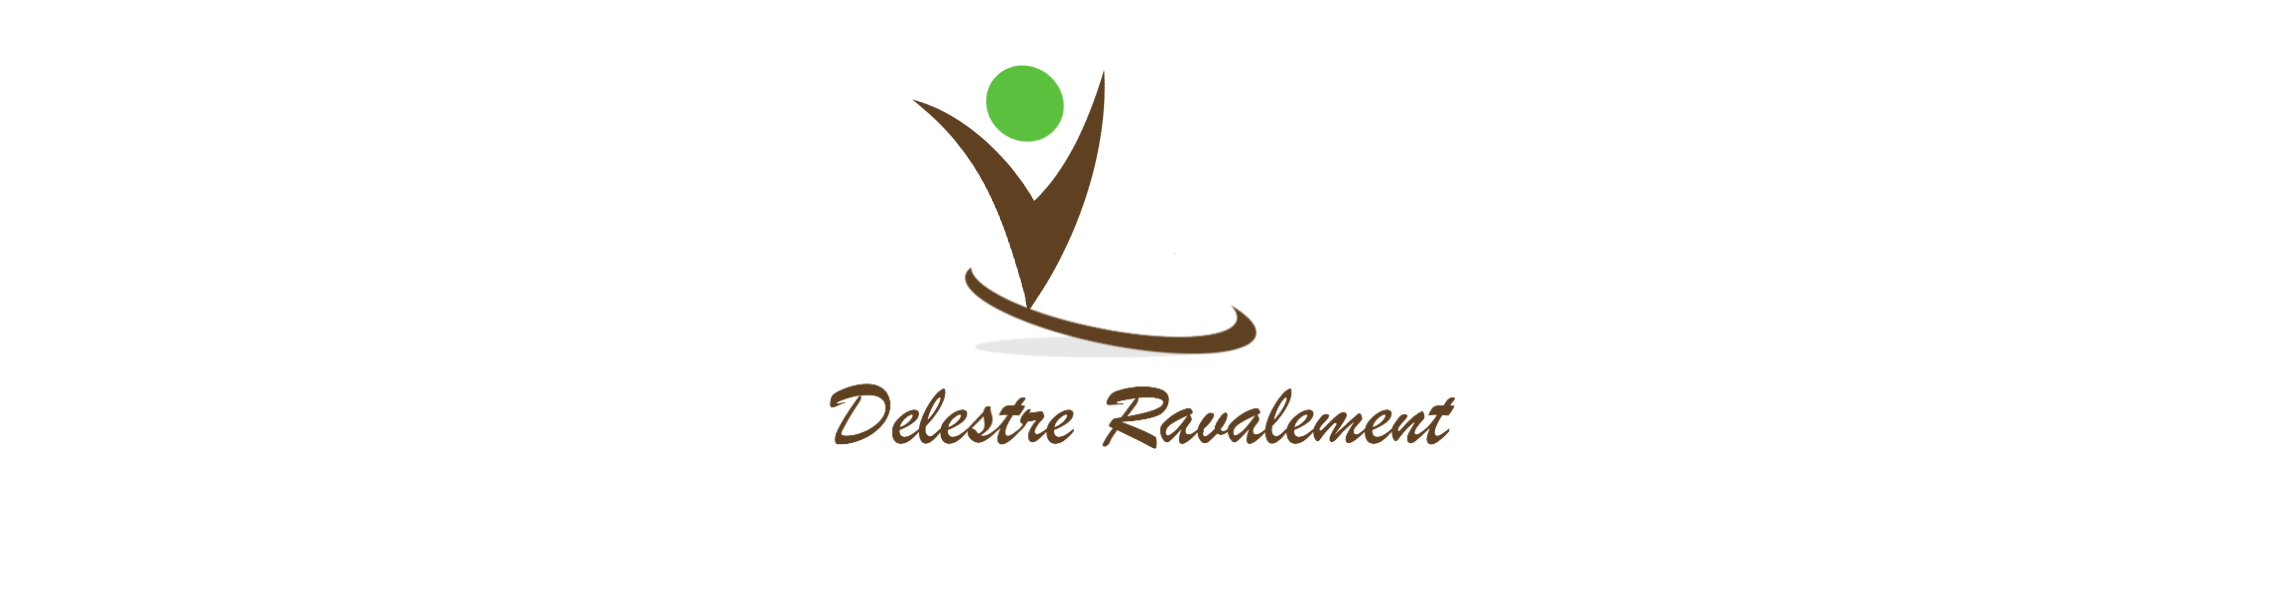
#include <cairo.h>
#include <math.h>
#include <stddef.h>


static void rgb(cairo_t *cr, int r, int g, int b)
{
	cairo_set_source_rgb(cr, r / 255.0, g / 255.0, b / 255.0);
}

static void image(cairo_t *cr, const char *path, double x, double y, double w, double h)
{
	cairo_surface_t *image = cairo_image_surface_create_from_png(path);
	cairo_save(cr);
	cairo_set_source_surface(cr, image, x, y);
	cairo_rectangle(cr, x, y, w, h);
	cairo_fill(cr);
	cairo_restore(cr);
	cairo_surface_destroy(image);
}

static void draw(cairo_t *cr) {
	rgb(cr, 255, 255, 255);
	cairo_paint(cr);
	image(cr, "image0.png", 985, 65, 80, 78);
	image(cr, "image4.png", 975, 336, 261, 22);
	image(cr, "image3.png", 964, 267, 293, 88);
	image(cr, "image1.png", 912, 69, 194, 241);
	image(cr, "image2.png", 1174, 252, 2, 3);
	image(cr, "image5.png", 829, 383, 626, 66);
}

int main(void) {
	cairo_surface_t *surface = cairo_image_surface_create(CAIRO_FORMAT_RGB24, 2283, 604);
	cairo_t *cr = cairo_create(surface);
	cairo_font_options_t *options = cairo_font_options_create();
	cairo_font_options_set_hint_metrics(options, CAIRO_HINT_METRICS_OFF);
	cairo_font_options_set_hint_style(options, CAIRO_HINT_STYLE_NONE);
	cairo_set_font_options(cr, options);
	cairo_set_miter_limit(cr, 4);
	draw(cr);
	cairo_surface_write_to_png(surface, "render.png");
	cairo_font_options_destroy(options);
	cairo_destroy(cr);
	cairo_surface_destroy(surface);
	return 0;
}
